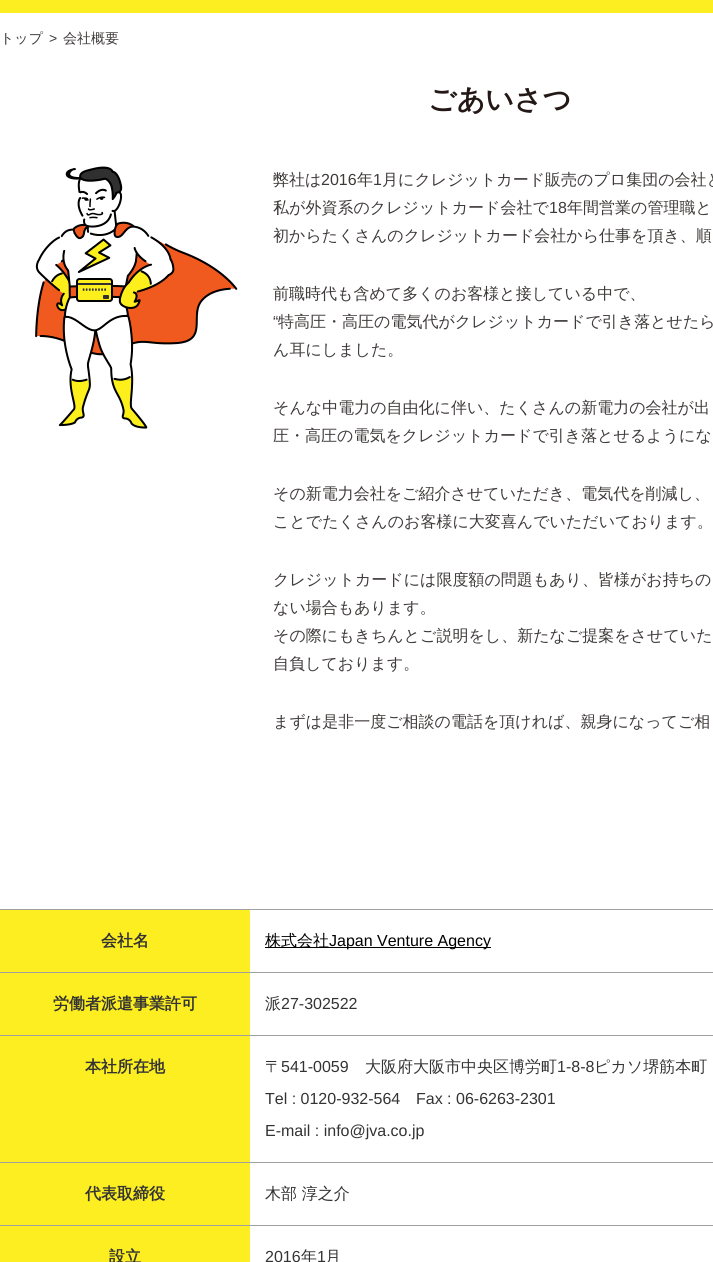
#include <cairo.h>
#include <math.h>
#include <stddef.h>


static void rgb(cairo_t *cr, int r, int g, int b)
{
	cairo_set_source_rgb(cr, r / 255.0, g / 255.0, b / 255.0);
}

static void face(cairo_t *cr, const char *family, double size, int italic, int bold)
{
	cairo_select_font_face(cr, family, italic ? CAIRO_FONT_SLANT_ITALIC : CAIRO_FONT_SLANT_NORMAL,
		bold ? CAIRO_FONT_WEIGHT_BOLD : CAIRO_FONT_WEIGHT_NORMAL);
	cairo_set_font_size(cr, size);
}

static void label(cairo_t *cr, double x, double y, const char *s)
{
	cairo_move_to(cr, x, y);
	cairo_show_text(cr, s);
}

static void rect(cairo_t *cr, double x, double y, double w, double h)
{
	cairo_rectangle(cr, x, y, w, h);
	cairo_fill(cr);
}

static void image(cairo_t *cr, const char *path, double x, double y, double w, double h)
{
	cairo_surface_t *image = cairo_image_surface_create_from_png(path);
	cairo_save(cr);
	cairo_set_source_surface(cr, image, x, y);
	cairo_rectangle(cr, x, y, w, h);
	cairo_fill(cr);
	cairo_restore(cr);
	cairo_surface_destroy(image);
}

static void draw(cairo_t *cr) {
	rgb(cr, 255, 255, 255);
	cairo_paint(cr);
	rgb(cr, 252, 238, 33);
	rect(cr, 0, 0, 713, 13);
	face(cr, "WenQuanYi Zen Hei Medium", 14, 0, 0);
	rgb(cr, 62, 58, 57);
	label(cr, 0, 43, "トップ");
	face(cr, "Liberation Sans", 14, 0, 0);
	label(cr, 49, 43, ">");
	face(cr, "WenQuanYi Zen Hei Medium", 14, 0, 0);
	label(cr, 63, 43, "会社概要");
	face(cr, "WenQuanYi Zen Hei", 28, 0, 1);
	rgb(cr, 35, 24, 21);
	label(cr, 428, 109, "ごあいさつ");
	image(cr, "image0.png", 35, 166, 203, 263);
	face(cr, "WenQuanYi Zen Hei Medium", 16, 0, 0);
	rgb(cr, 62, 58, 57);
	label(cr, 273, 185, "弊社は");
	face(cr, "Liberation Sans", 16, 0, 0);
	label(cr, 321, 185, "2016");
	face(cr, "WenQuanYi Zen Hei Medium", 16, 0, 0);
	label(cr, 357, 185, "年");
	face(cr, "Liberation Sans", 16, 0, 0);
	label(cr, 373, 185, "1");
	face(cr, "WenQuanYi Zen Hei Medium", 16, 0, 0);
	label(cr, 382, 185, "月にクレジットカード販売のプロ集団の会社と");
	label(cr, 273, 213, "私が外資系のクレジットカード会社で");
	face(cr, "Liberation Sans", 16, 0, 0);
	label(cr, 549, 213, "18");
	face(cr, "WenQuanYi Zen Hei Medium", 16, 0, 0);
	label(cr, 567, 213, "年間営業の管理職と");
	label(cr, 273, 241, "初からたくさんのクレジットカード会社から仕事を頂き、順");
	label(cr, 273, 299, "前職時代も含めて多くのお客様と接している中で、");
	face(cr, "Liberation Sans", 16, 0, 0);
	label(cr, 273, 327, "“");
	face(cr, "WenQuanYi Zen Hei Medium", 16, 0, 0);
	label(cr, 278, 327, "特高圧・高圧の電気代がクレジットカードで引き落とせたら");
	label(cr, 273, 355, "ん耳にしました。");
	label(cr, 273, 413, "そんな中電力の自由化に伴い、たくさんの新電力の会社が出");
	label(cr, 273, 441, "圧・高圧の電気をクレジットカードで引き落とせるようにな");
	label(cr, 273, 499, "その新電力会社をご紹介させていただき、電気代を削減し、");
	label(cr, 273, 527, "ことでたくさんのお客様に大変喜んでいただいております。");
	label(cr, 273, 585, "クレジットカードには限度額の問題もあり、皆様がお持ちの");
	label(cr, 273, 613, "ない場合もあります。");
	label(cr, 273, 641, "その際にもきちんとご説明をし、新たなご提案をさせていた");
	label(cr, 273, 669, "自負しております。");
	label(cr, 273, 727, "まずは是非一度ご相談の電話を頂ければ、親身になってご相");
	rgb(cr, 160, 160, 160);
	rect(cr, 0, 909, 713, 1);
	rect(cr, 0, 972, 713, 1);
	rgb(cr, 252, 238, 33);
	rect(cr, 0, 910, 250, 62);
	face(cr, "WenQuanYi Zen Hei", 16, 0, 1);
	rgb(cr, 51, 51, 51);
	label(cr, 101, 946, "会社名");
	rgb(cr, 0, 0, 0);
	rect(cr, 265, 947, 226, 1);
	face(cr, "WenQuanYi Zen Hei Medium", 16, 0, 0);
	label(cr, 265, 946, "株式会社");
	face(cr, "Liberation Sans", 16, 0, 0);
	label(cr, 329, 946, "Japan Venture Agency");
	rgb(cr, 160, 160, 160);
	rect(cr, 0, 1035, 713, 1);
	rgb(cr, 252, 238, 33);
	rect(cr, 0, 973, 250, 62);
	face(cr, "WenQuanYi Zen Hei", 16, 0, 1);
	rgb(cr, 51, 51, 51);
	label(cr, 53, 1009, "労働者派遣事業許可");
	face(cr, "WenQuanYi Zen Hei Medium", 16, 0, 0);
	label(cr, 265, 1009, "派");
	face(cr, "Liberation Sans", 16, 0, 0);
	label(cr, 281, 1009, "27-302522");
	rgb(cr, 160, 160, 160);
	rect(cr, 0, 1162, 713, 1);
	rgb(cr, 252, 238, 33);
	rect(cr, 0, 1036, 250, 126);
	face(cr, "WenQuanYi Zen Hei", 16, 0, 1);
	rgb(cr, 51, 51, 51);
	label(cr, 85, 1072, "本社所在地");
	face(cr, "WenQuanYi Zen Hei Medium", 16, 0, 0);
	label(cr, 265, 1072, "〒");
	face(cr, "Liberation Sans", 16, 0, 0);
	label(cr, 281, 1072, "541-0059");
	face(cr, "WenQuanYi Zen Hei Medium", 16, 0, 0);
	label(cr, 365, 1072, "大阪府大阪市中央区博労町");
	face(cr, "Liberation Sans", 16, 0, 0);
	label(cr, 557, 1072, "1-8-8");
	face(cr, "WenQuanYi Zen Hei Medium", 16, 0, 0);
	label(cr, 594, 1072, "ピカソ堺筋本町");
	face(cr, "Liberation Sans", 16, 0, 0);
	label(cr, 265, 1104, "Tel : 0120-932-564");
	label(cr, 416, 1104, "Fax : 06-6263-2301");
	label(cr, 265, 1136, "E-mail : info@jva.co.jp");
	rgb(cr, 160, 160, 160);
	rect(cr, 0, 1225, 713, 1);
	rgb(cr, 252, 238, 33);
	rect(cr, 0, 1163, 250, 62);
	face(cr, "WenQuanYi Zen Hei", 16, 0, 1);
	rgb(cr, 51, 51, 51);
	label(cr, 85, 1199, "代表取締役");
	face(cr, "WenQuanYi Zen Hei Medium", 16, 0, 0);
	label(cr, 265, 1199, "木部 淳之介");
	rgb(cr, 252, 238, 33);
	rect(cr, 0, 1226, 250, 36);
	face(cr, "WenQuanYi Zen Hei", 16, 0, 1);
	rgb(cr, 51, 51, 51);
	label(cr, 109, 1262, "設立");
	face(cr, "Liberation Sans", 16, 0, 0);
	label(cr, 265, 1262, "2016");
	face(cr, "WenQuanYi Zen Hei Medium", 16, 0, 0);
	label(cr, 301, 1262, "年");
	face(cr, "Liberation Sans", 16, 0, 0);
	label(cr, 317, 1262, "1");
	face(cr, "WenQuanYi Zen Hei Medium", 16, 0, 0);
	label(cr, 325, 1262, "月");
}

int main(void) {
	cairo_surface_t *surface = cairo_image_surface_create(CAIRO_FORMAT_RGB24, 713, 1262);
	cairo_t *cr = cairo_create(surface);
	cairo_font_options_t *options = cairo_font_options_create();
	cairo_font_options_set_hint_metrics(options, CAIRO_HINT_METRICS_OFF);
	cairo_font_options_set_hint_style(options, CAIRO_HINT_STYLE_NONE);
	cairo_set_font_options(cr, options);
	cairo_set_miter_limit(cr, 4);
	draw(cr);
	cairo_surface_write_to_png(surface, "render.png");
	cairo_font_options_destroy(options);
	cairo_destroy(cr);
	cairo_surface_destroy(surface);
	return 0;
}
